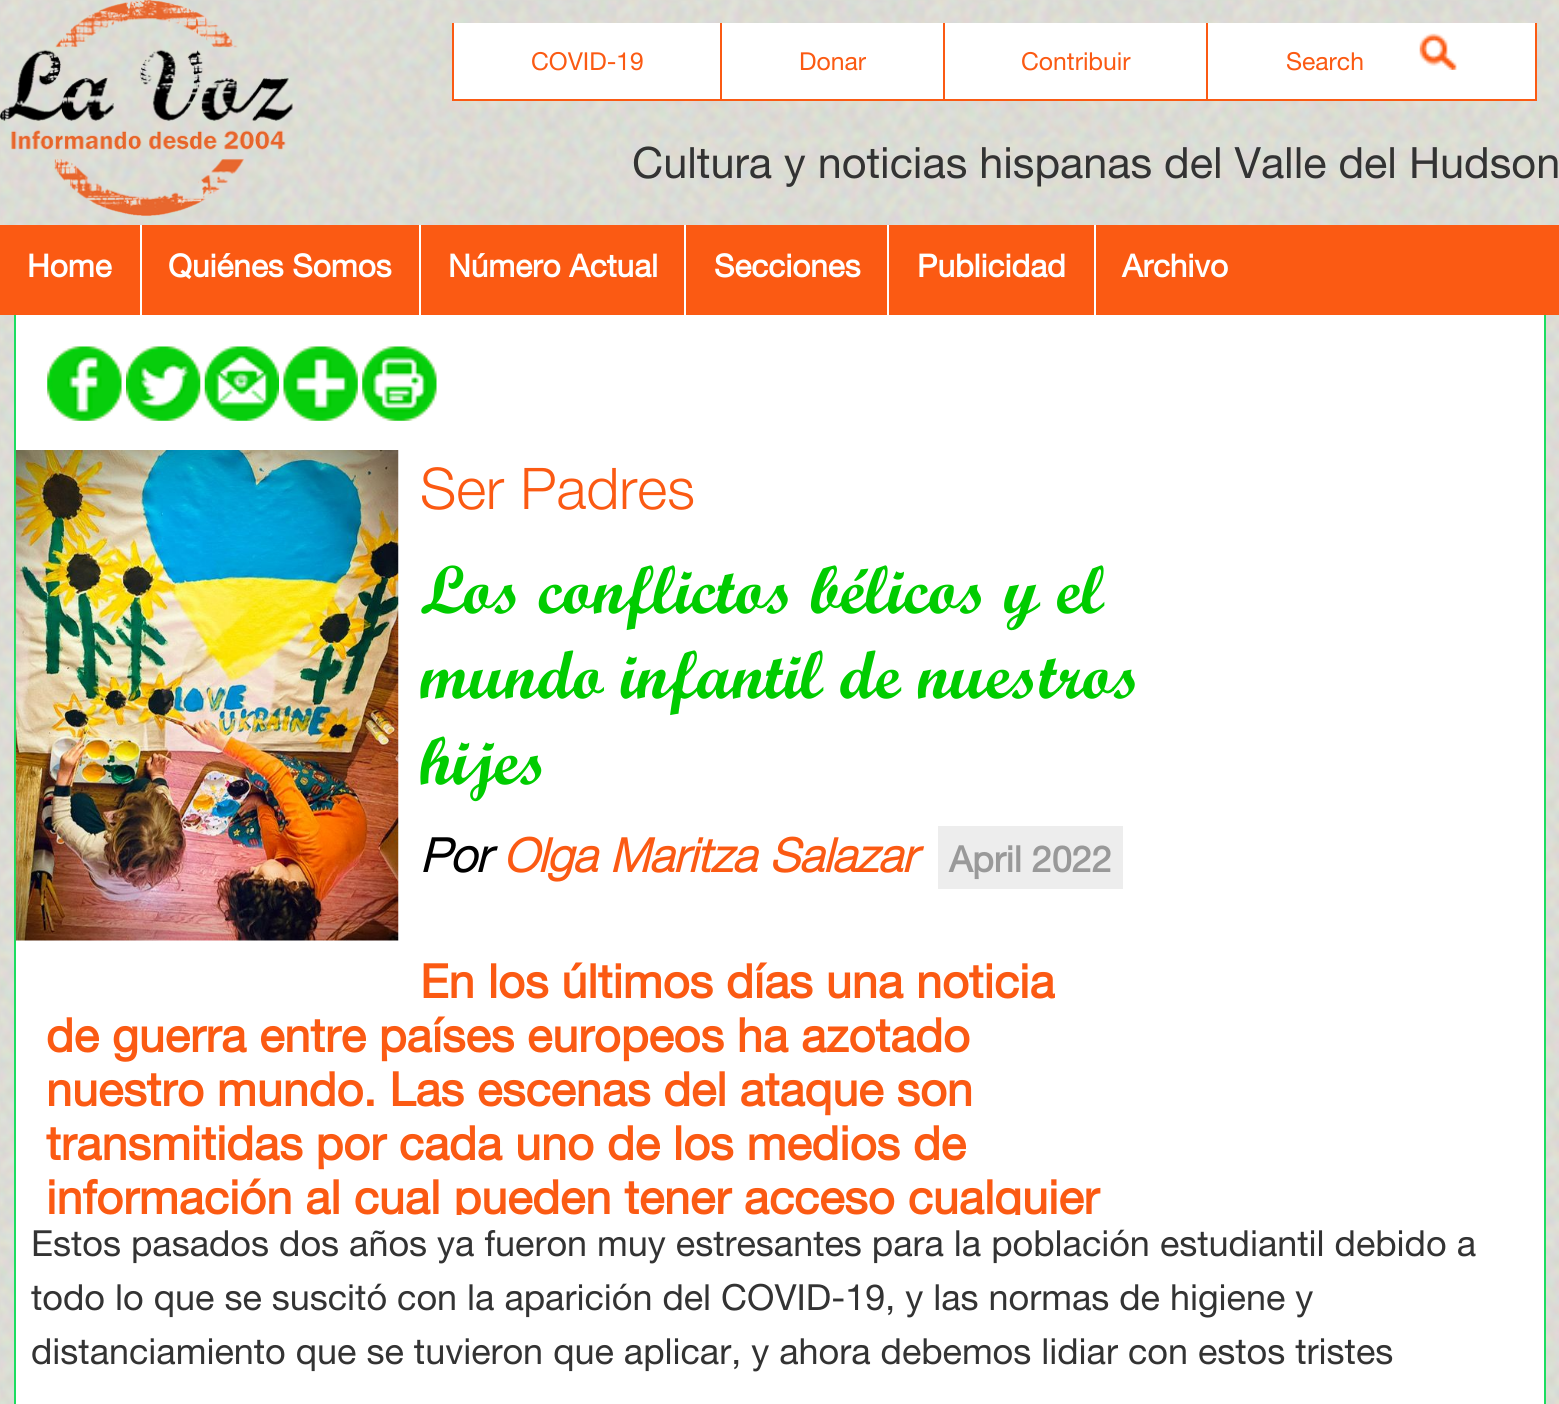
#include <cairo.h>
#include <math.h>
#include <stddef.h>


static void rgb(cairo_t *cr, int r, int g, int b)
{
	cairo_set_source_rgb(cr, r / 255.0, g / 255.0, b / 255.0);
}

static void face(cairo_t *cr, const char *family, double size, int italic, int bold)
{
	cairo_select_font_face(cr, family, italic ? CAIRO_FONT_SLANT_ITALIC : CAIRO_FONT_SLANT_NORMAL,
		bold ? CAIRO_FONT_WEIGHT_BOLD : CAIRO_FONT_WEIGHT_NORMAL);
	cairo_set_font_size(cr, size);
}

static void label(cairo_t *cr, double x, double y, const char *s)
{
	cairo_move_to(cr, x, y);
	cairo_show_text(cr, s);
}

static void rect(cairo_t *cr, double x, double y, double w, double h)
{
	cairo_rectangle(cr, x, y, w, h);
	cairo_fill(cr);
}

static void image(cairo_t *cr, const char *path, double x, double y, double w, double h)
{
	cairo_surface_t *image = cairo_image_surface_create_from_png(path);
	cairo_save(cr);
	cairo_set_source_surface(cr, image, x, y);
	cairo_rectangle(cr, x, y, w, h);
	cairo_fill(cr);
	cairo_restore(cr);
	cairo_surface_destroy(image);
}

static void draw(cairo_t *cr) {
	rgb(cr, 255, 255, 255);
	cairo_paint(cr);
	image(cr, "image0.png", 0, 0, 1559, 1404);
	image(cr, "image1.png", 0, 0, 293, 216);
	rgb(cr, 255, 255, 255);
	rect(cr, 454, 23, 1081, 76);
	rgb(cr, 251, 90, 19);
	rect(cr, 452, 99, 1085, 2);
	rect(cr, 452, 23, 2, 78);
	rect(cr, 720, 23, 2, 76);
	face(cr, "Helvetica Neue", 24.75, 0, 0);
	label(cr, 531, 70, "COVID-19");
	rect(cr, 943, 23, 2, 76);
	label(cr, 799, 70, "Donar");
	rect(cr, 1206, 23, 2, 76);
	label(cr, 1021, 70, "Contribuir");
	rect(cr, 1535, 23, 2, 76);
	label(cr, 1286, 70, "Search");
	image(cr, "image2.png", 1419, 33, 38, 37);
	face(cr, "Helvetica Neue", 43.2, 0, 0);
	rgb(cr, 51, 51, 51);
	label(cr, 632, 178, "Cultura y noticias hispanas del Valle del Hudson");
	rgb(cr, 251, 90, 19);
	rect(cr, 0, 225, 1559, 90);
	rgb(cr, 255, 255, 255);
	rect(cr, 140, 225, 2, 90);
	face(cr, "Helvetica Neue", 31.5, 0, 1);
	label(cr, 27, 277, "Home");
	rect(cr, 419, 225, 2, 90);
	label(cr, 168, 277, "Quiénes Somos");
	rect(cr, 684, 225, 2, 90);
	label(cr, 448, 277, "Número Actual");
	rect(cr, 887, 225, 2, 90);
	label(cr, 714, 277, "Secciones");
	rect(cr, 1094, 225, 2, 90);
	label(cr, 917, 277, "Publicidad");
	label(cr, 1122, 277, "Archivo");
	rgb(cr, 28, 221, 96);
	rect(cr, 1544, 315, 2, 1089);
	rect(cr, 14, 315, 2, 1089);
	rgb(cr, 255, 255, 255);
	rect(cr, 16, 315, 1528, 1089);
	image(cr, "image3.png", 47, 346, 75, 75);
	image(cr, "image4.png", 126, 346, 75, 75);
	image(cr, "image5.png", 204, 346, 75, 75);
	image(cr, "image6.png", 283, 346, 75, 75);
	image(cr, "image7.png", 362, 346, 75, 75);
	image(cr, "image8.png", 15, 450, 384, 491);
	face(cr, "Helvetica Neue Light", 57.5, 0, 0);
	rgb(cr, 251, 90, 19);
	label(cr, 420, 509, "Ser Padres");
	face(cr, "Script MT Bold", 68.4, 0, 1);
	rgb(cr, 0, 204, 0);
	label(cr, 420, 613, "Los conflictos bélicos y el");
	label(cr, 420, 698, "mundo infantil de nuestros");
	label(cr, 420, 784, "hijes");
	face(cr, "Helvetica Neue", 46.8, 1, 1);
	rgb(cr, 0, 0, 0);
	label(cr, 420, 872, "Por");
	rgb(cr, 251, 90, 19);
	label(cr, 503, 872, "Olga Maritza Salazar");
	rgb(cr, 237, 237, 237);
	rect(cr, 938, 826, 185, 63);
	face(cr, "Helvetica Neue", 36, 0, 1);
	rgb(cr, 153, 153, 153);
	label(cr, 949, 872, "April 2022");
	face(cr, "Helvetica Neue", 46.8, 0, 1);
	rgb(cr, 251, 90, 19);
	label(cr, 420, 998, "En los últimos días una noticia");
	label(cr, 46, 1052, "de guerra entre países europeos ha azotado");
	label(cr, 46, 1106, "nuestro mundo. Las escenas del ataque son");
	label(cr, 46, 1160, "transmitidas por cada uno de los medios de");
	cairo_save(cr);
	cairo_rectangle(cr, 16, 315, 1528, 900);
	cairo_clip(cr);
	label(cr, 46, 1214, "información al cual pueden tener acceso cualquier");
	cairo_restore(cr);
	face(cr, "Helvetica Neue", 36, 0, 0);
	rgb(cr, 51, 51, 51);
	label(cr, 31, 1256, "Estos pasados dos años ya fueron muy estresantes para la población estudiantil debido a");
	label(cr, 31, 1310, "todo lo que se suscitó con la aparición del COVID-19, y las normas de higiene y");
	label(cr, 31, 1364, "distanciamiento que se tuvieron que aplicar, y ahora debemos lidiar con estos tristes");
}

int main(void) {
	cairo_surface_t *surface = cairo_image_surface_create(CAIRO_FORMAT_RGB24, 1559, 1404);
	cairo_t *cr = cairo_create(surface);
	cairo_font_options_t *options = cairo_font_options_create();
	cairo_font_options_set_hint_metrics(options, CAIRO_HINT_METRICS_OFF);
	cairo_font_options_set_hint_style(options, CAIRO_HINT_STYLE_NONE);
	cairo_set_font_options(cr, options);
	cairo_set_miter_limit(cr, 4);
	draw(cr);
	cairo_surface_write_to_png(surface, "render.png");
	cairo_font_options_destroy(options);
	cairo_destroy(cr);
	cairo_surface_destroy(surface);
	return 0;
}
